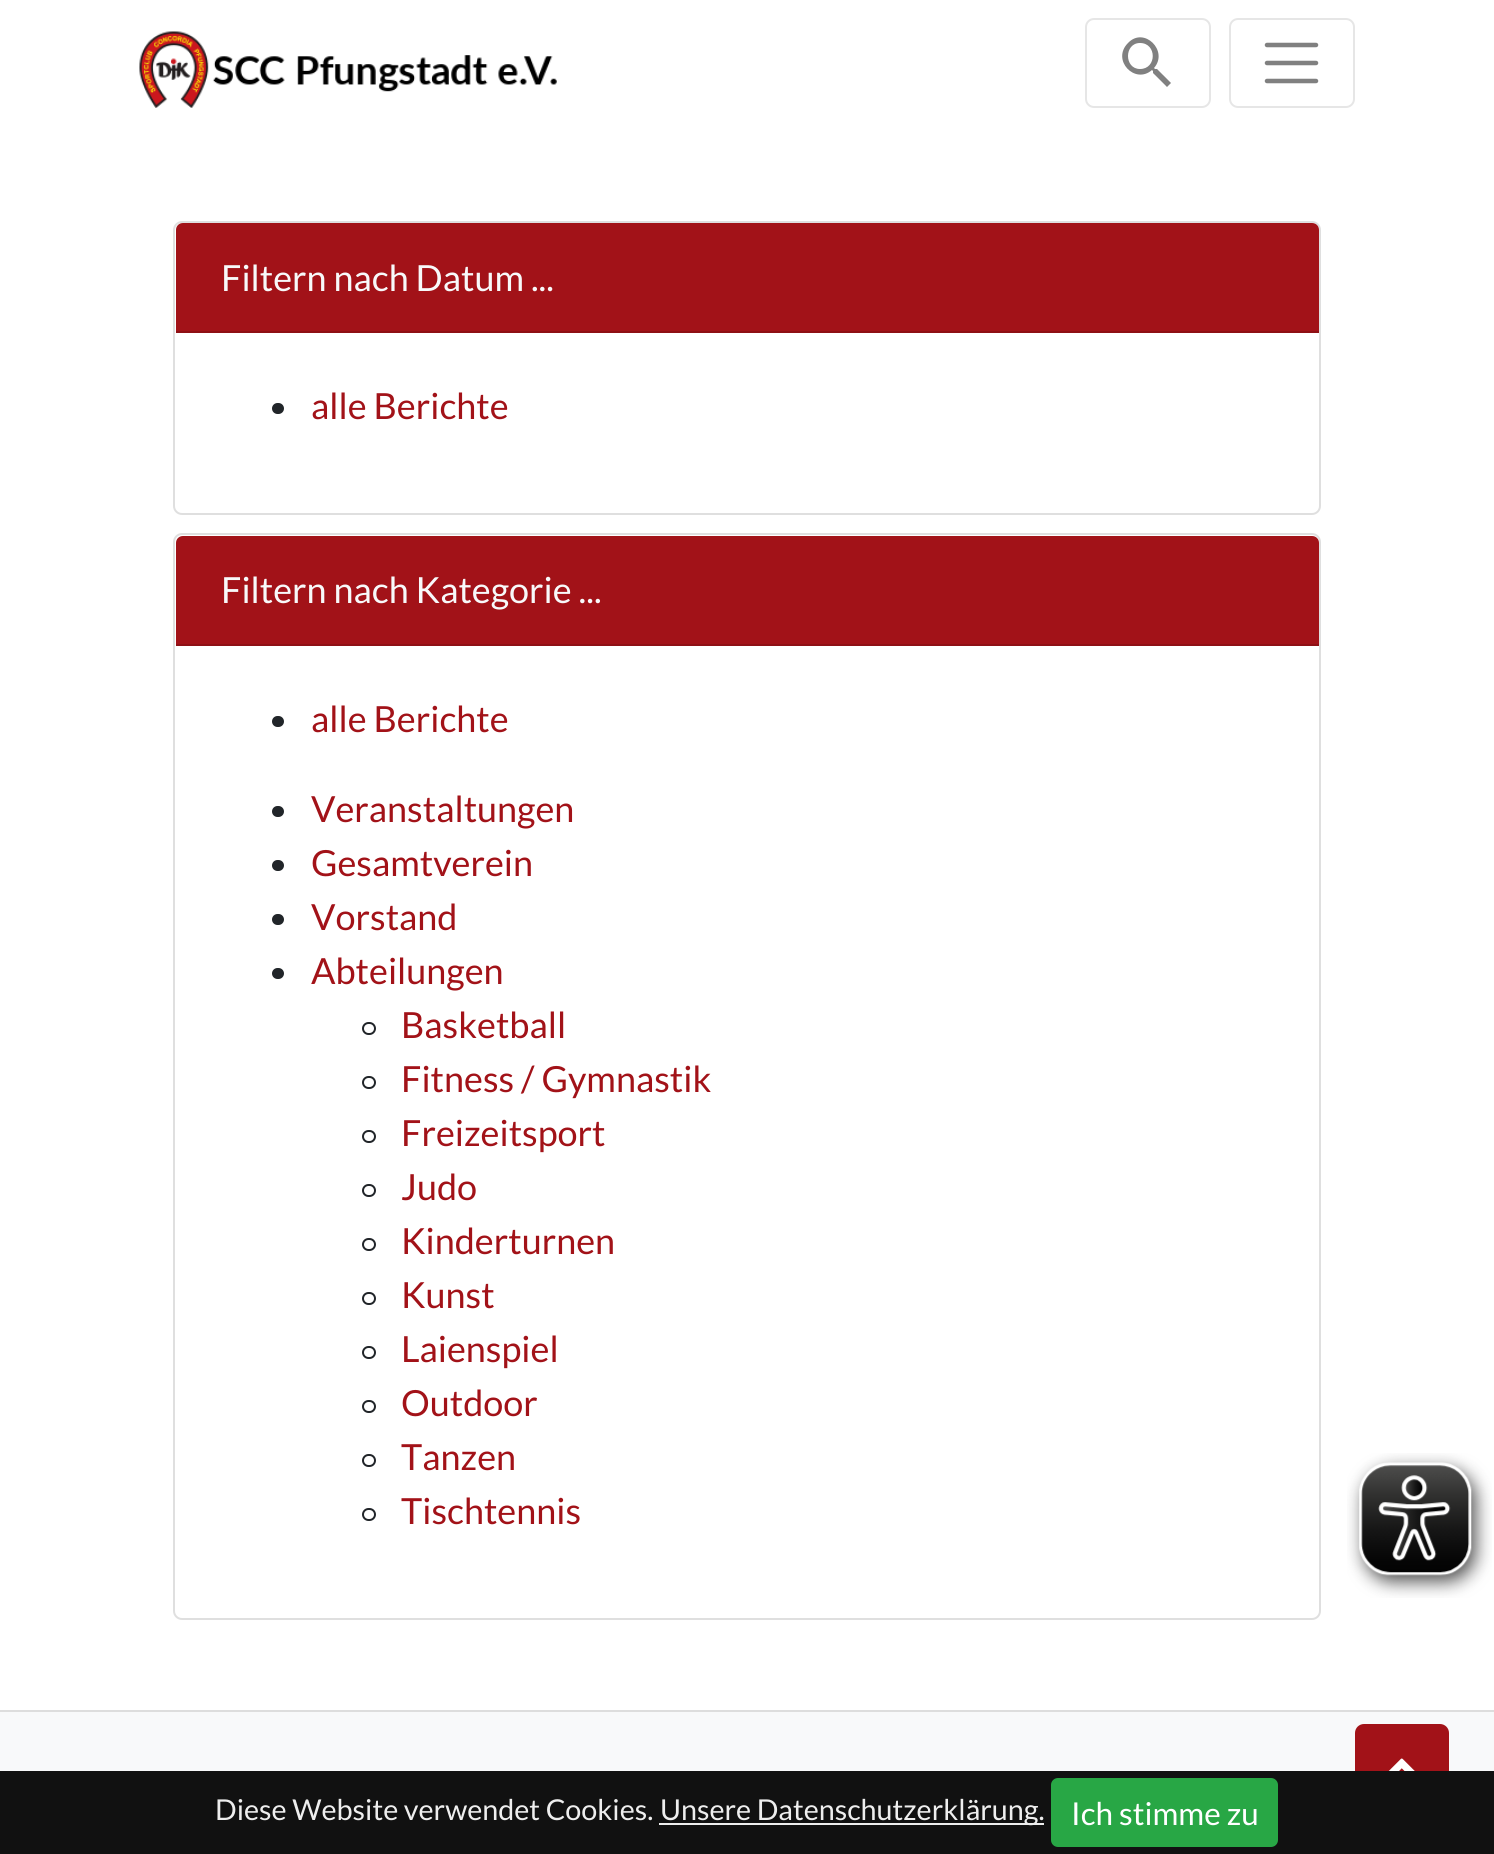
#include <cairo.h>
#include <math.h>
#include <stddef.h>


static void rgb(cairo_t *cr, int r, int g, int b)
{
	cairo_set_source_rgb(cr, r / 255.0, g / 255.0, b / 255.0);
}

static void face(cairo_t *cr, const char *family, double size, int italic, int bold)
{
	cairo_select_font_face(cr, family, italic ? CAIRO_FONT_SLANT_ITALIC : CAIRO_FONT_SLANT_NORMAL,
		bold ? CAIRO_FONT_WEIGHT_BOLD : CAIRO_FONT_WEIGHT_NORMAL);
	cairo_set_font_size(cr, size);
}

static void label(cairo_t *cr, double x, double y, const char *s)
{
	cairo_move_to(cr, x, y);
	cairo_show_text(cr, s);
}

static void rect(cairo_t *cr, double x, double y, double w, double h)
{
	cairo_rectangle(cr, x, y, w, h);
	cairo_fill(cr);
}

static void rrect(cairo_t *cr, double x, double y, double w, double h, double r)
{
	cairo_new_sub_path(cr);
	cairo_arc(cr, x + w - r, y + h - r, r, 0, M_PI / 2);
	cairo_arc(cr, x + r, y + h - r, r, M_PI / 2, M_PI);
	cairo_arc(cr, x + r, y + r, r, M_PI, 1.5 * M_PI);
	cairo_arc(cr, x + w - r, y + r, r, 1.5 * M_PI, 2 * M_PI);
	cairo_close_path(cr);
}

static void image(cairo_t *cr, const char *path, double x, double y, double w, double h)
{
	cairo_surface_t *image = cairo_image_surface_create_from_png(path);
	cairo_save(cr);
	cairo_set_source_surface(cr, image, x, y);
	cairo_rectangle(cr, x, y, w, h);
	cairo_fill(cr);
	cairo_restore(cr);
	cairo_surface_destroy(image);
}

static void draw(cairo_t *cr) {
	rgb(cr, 255, 255, 255);
	cairo_paint(cr);
	image(cr, "image0.png", 139, 31, 433, 77);
	rrect(cr, 1086, 19, 124, 88, 8);
	rgb(cr, 230, 230, 230);
	cairo_stroke(cr);
	rgb(cr, 128, 128, 128);
	cairo_new_path(cr);
	cairo_move_to(cr, 1157, 69);
	cairo_line_to(cr, 1155, 69);
	cairo_line_to(cr, 1154, 68);
	cairo_curve_to(cr, 1169, 51, 1144, 26, 1128, 43);
	cairo_curve_to(cr, 1111, 60, 1135, 85, 1152, 70);
	cairo_line_to(cr, 1153, 71);
	cairo_line_to(cr, 1153, 73);
	cairo_line_to(cr, 1167, 87);
	cairo_line_to(cr, 1171, 83);
	cairo_close_path(cr);
	cairo_move_to(cr, 1140, 69);
	cairo_curve_to(cr, 1124, 69, 1124, 43, 1140, 43);
	cairo_curve_to(cr, 1157, 43, 1157, 69, 1140, 69);
	cairo_close_path(cr);
	cairo_fill(cr);
	rrect(cr, 1230, 19, 124, 88, 8);
	rgb(cr, 230, 230, 230);
	cairo_stroke(cr);
	cairo_new_path(cr);
	cairo_move_to(cr, 1267, 45);
	cairo_line_to(cr, 1316, 45);
	cairo_move_to(cr, 1267, 63);
	cairo_line_to(cr, 1316, 63);
	cairo_move_to(cr, 1267, 81);
	cairo_line_to(cr, 1316, 81);
	rgb(cr, 128, 128, 128);
	cairo_set_line_width(cr, 4.5);
	cairo_set_line_cap(cr, CAIRO_LINE_CAP_ROUND);
	cairo_stroke(cr);
	rrect(cr, 174, 222, 1146, 292, 8);
	rgb(cr, 223, 223, 223);
	cairo_set_line_width(cr, 2);
	cairo_set_line_cap(cr, CAIRO_LINE_CAP_BUTT);
	cairo_stroke(cr);
	rgb(cr, 162, 18, 24);
	cairo_new_path(cr);
	cairo_move_to(cr, 183, 223);
	cairo_line_to(cr, 1312, 223);
	cairo_curve_to(cr, 1316, 223, 1319, 226, 1319, 230);
	cairo_line_to(cr, 1319, 333);
	cairo_line_to(cr, 176, 333);
	cairo_line_to(cr, 176, 230);
	cairo_curve_to(cr, 176, 226, 179, 223, 183, 223);
	cairo_close_path(cr);
	cairo_fill(cr);
	rgb(cr, 142, 16, 21);
	rect(cr, 176, 331, 1143, 2);
	face(cr, "Lato", 36, 0, 0);
	rgb(cr, 248, 249, 250);
	label(cr, 221, 291, "Filtern nach Datum ...");
	rgb(cr, 33, 37, 41);
	rrect(cr, 272, 403, 12, 11, 5.5);
	cairo_fill(cr);
	rgb(cr, 162, 18, 24);
	label(cr, 311, 419, "alle Berichte");
	rrect(cr, 174, 534, 1146, 1085, 8);
	rgb(cr, 223, 223, 223);
	cairo_stroke(cr);
	rgb(cr, 162, 18, 24);
	cairo_new_path(cr);
	cairo_move_to(cr, 183, 536);
	cairo_line_to(cr, 1312, 536);
	cairo_curve_to(cr, 1316, 536, 1319, 539, 1319, 543);
	cairo_line_to(cr, 1319, 646);
	cairo_line_to(cr, 176, 646);
	cairo_line_to(cr, 176, 543);
	cairo_curve_to(cr, 176, 539, 179, 536, 183, 536);
	cairo_close_path(cr);
	cairo_fill(cr);
	rgb(cr, 142, 16, 21);
	rect(cr, 176, 644, 1143, 2);
	rgb(cr, 248, 249, 250);
	label(cr, 221, 603, "Filtern nach Kategorie ...");
	rgb(cr, 33, 37, 41);
	rrect(cr, 272, 716, 12, 11, 5.5);
	cairo_fill(cr);
	rgb(cr, 162, 18, 24);
	label(cr, 311, 732, "alle Berichte");
	rgb(cr, 33, 37, 41);
	rrect(cr, 272, 806, 12, 11, 5.5);
	cairo_fill(cr);
	rgb(cr, 162, 18, 24);
	label(cr, 311, 822, "Veranstaltungen");
	rgb(cr, 33, 37, 41);
	rrect(cr, 272, 860, 12, 11, 5.5);
	cairo_fill(cr);
	rgb(cr, 162, 18, 24);
	label(cr, 311, 876, "Gesamtverein");
	rgb(cr, 33, 37, 41);
	rrect(cr, 272, 914, 12, 11, 5.5);
	cairo_fill(cr);
	rgb(cr, 162, 18, 24);
	label(cr, 311, 930, "Vorstand");
	rgb(cr, 33, 37, 41);
	rrect(cr, 272, 968, 12, 11, 5.5);
	cairo_fill(cr);
	rgb(cr, 162, 18, 24);
	label(cr, 311, 984, "Abteilungen");
	rrect(cr, 363, 1023, 12, 11, 5.5);
	rgb(cr, 33, 37, 41);
	cairo_stroke(cr);
	rgb(cr, 162, 18, 24);
	label(cr, 401, 1038, "Basketball");
	rrect(cr, 363, 1077, 12, 11, 5.5);
	rgb(cr, 33, 37, 41);
	cairo_stroke(cr);
	rgb(cr, 162, 18, 24);
	label(cr, 401, 1092, "Fitness / Gymnastik");
	rrect(cr, 363, 1131, 12, 11, 5.5);
	rgb(cr, 33, 37, 41);
	cairo_stroke(cr);
	rgb(cr, 162, 18, 24);
	label(cr, 401, 1146, "Freizeitsport");
	rrect(cr, 363, 1185, 12, 11, 5.5);
	rgb(cr, 33, 37, 41);
	cairo_stroke(cr);
	rgb(cr, 162, 18, 24);
	label(cr, 401, 1200, "Judo");
	rrect(cr, 363, 1239, 12, 11, 5.5);
	rgb(cr, 33, 37, 41);
	cairo_stroke(cr);
	rgb(cr, 162, 18, 24);
	label(cr, 401, 1254, "Kinderturnen");
	rrect(cr, 363, 1293, 12, 11, 5.5);
	rgb(cr, 33, 37, 41);
	cairo_stroke(cr);
	rgb(cr, 162, 18, 24);
	label(cr, 401, 1308, "Kunst");
	rrect(cr, 363, 1347, 12, 11, 5.5);
	rgb(cr, 33, 37, 41);
	cairo_stroke(cr);
	rgb(cr, 162, 18, 24);
	label(cr, 401, 1362, "Laienspiel");
	rrect(cr, 363, 1401, 12, 11, 5.5);
	rgb(cr, 33, 37, 41);
	cairo_stroke(cr);
	rgb(cr, 162, 18, 24);
	label(cr, 401, 1416, "Outdoor");
	rrect(cr, 363, 1455, 12, 11, 5.5);
	rgb(cr, 33, 37, 41);
	cairo_stroke(cr);
	rgb(cr, 162, 18, 24);
	label(cr, 401, 1470, "Tanzen");
	rrect(cr, 363, 1509, 12, 11, 5.5);
	rgb(cr, 33, 37, 41);
	cairo_stroke(cr);
	rgb(cr, 162, 18, 24);
	label(cr, 401, 1524, "Tischtennis");
	rgb(cr, 248, 249, 250);
	rect(cr, 0, 1712, 1494, 59);
	rgb(cr, 221, 221, 221);
	rect(cr, 0, 1710, 1494, 2);
	rgb(cr, 162, 18, 24);
	rrect(cr, 1356, 1725, 92, 83, 8);
	cairo_fill_preserve(cr);
	cairo_stroke(cr);
	rgb(cr, 17, 17, 17);
	rect(cr, 0, 1771, 1494, 83);
	face(cr, "Lato", 28.75, 0, 0);
	rgb(cr, 238, 238, 238);
	label(cr, 215, 1820, "Diese Website verwendet Cookies.");
	rect(cr, 659, 1823, 385, 2);
	label(cr, 660, 1820, "Unsere Datenschutzerklärung.");
	rgb(cr, 40, 167, 69);
	rrect(cr, 1052, 1779, 225, 67, 6);
	cairo_fill_preserve(cr);
	cairo_stroke(cr);
	face(cr, "Lato", 31.5, 0, 0);
	rgb(cr, 255, 255, 255);
	label(cr, 1071, 1825, "Ich stimme zu");
	image(cr, "image1.png", 1347, 1453, 145, 145);
	image(cr, "image2.png", 1388, 1758, 27, 13);
}

int main(void) {
	cairo_surface_t *surface = cairo_image_surface_create(CAIRO_FORMAT_RGB24, 1494, 1854);
	cairo_t *cr = cairo_create(surface);
	cairo_font_options_t *options = cairo_font_options_create();
	cairo_font_options_set_hint_metrics(options, CAIRO_HINT_METRICS_OFF);
	cairo_font_options_set_hint_style(options, CAIRO_HINT_STYLE_NONE);
	cairo_set_font_options(cr, options);
	cairo_set_miter_limit(cr, 4);
	draw(cr);
	cairo_surface_write_to_png(surface, "render.png");
	cairo_font_options_destroy(options);
	cairo_destroy(cr);
	cairo_surface_destroy(surface);
	return 0;
}
